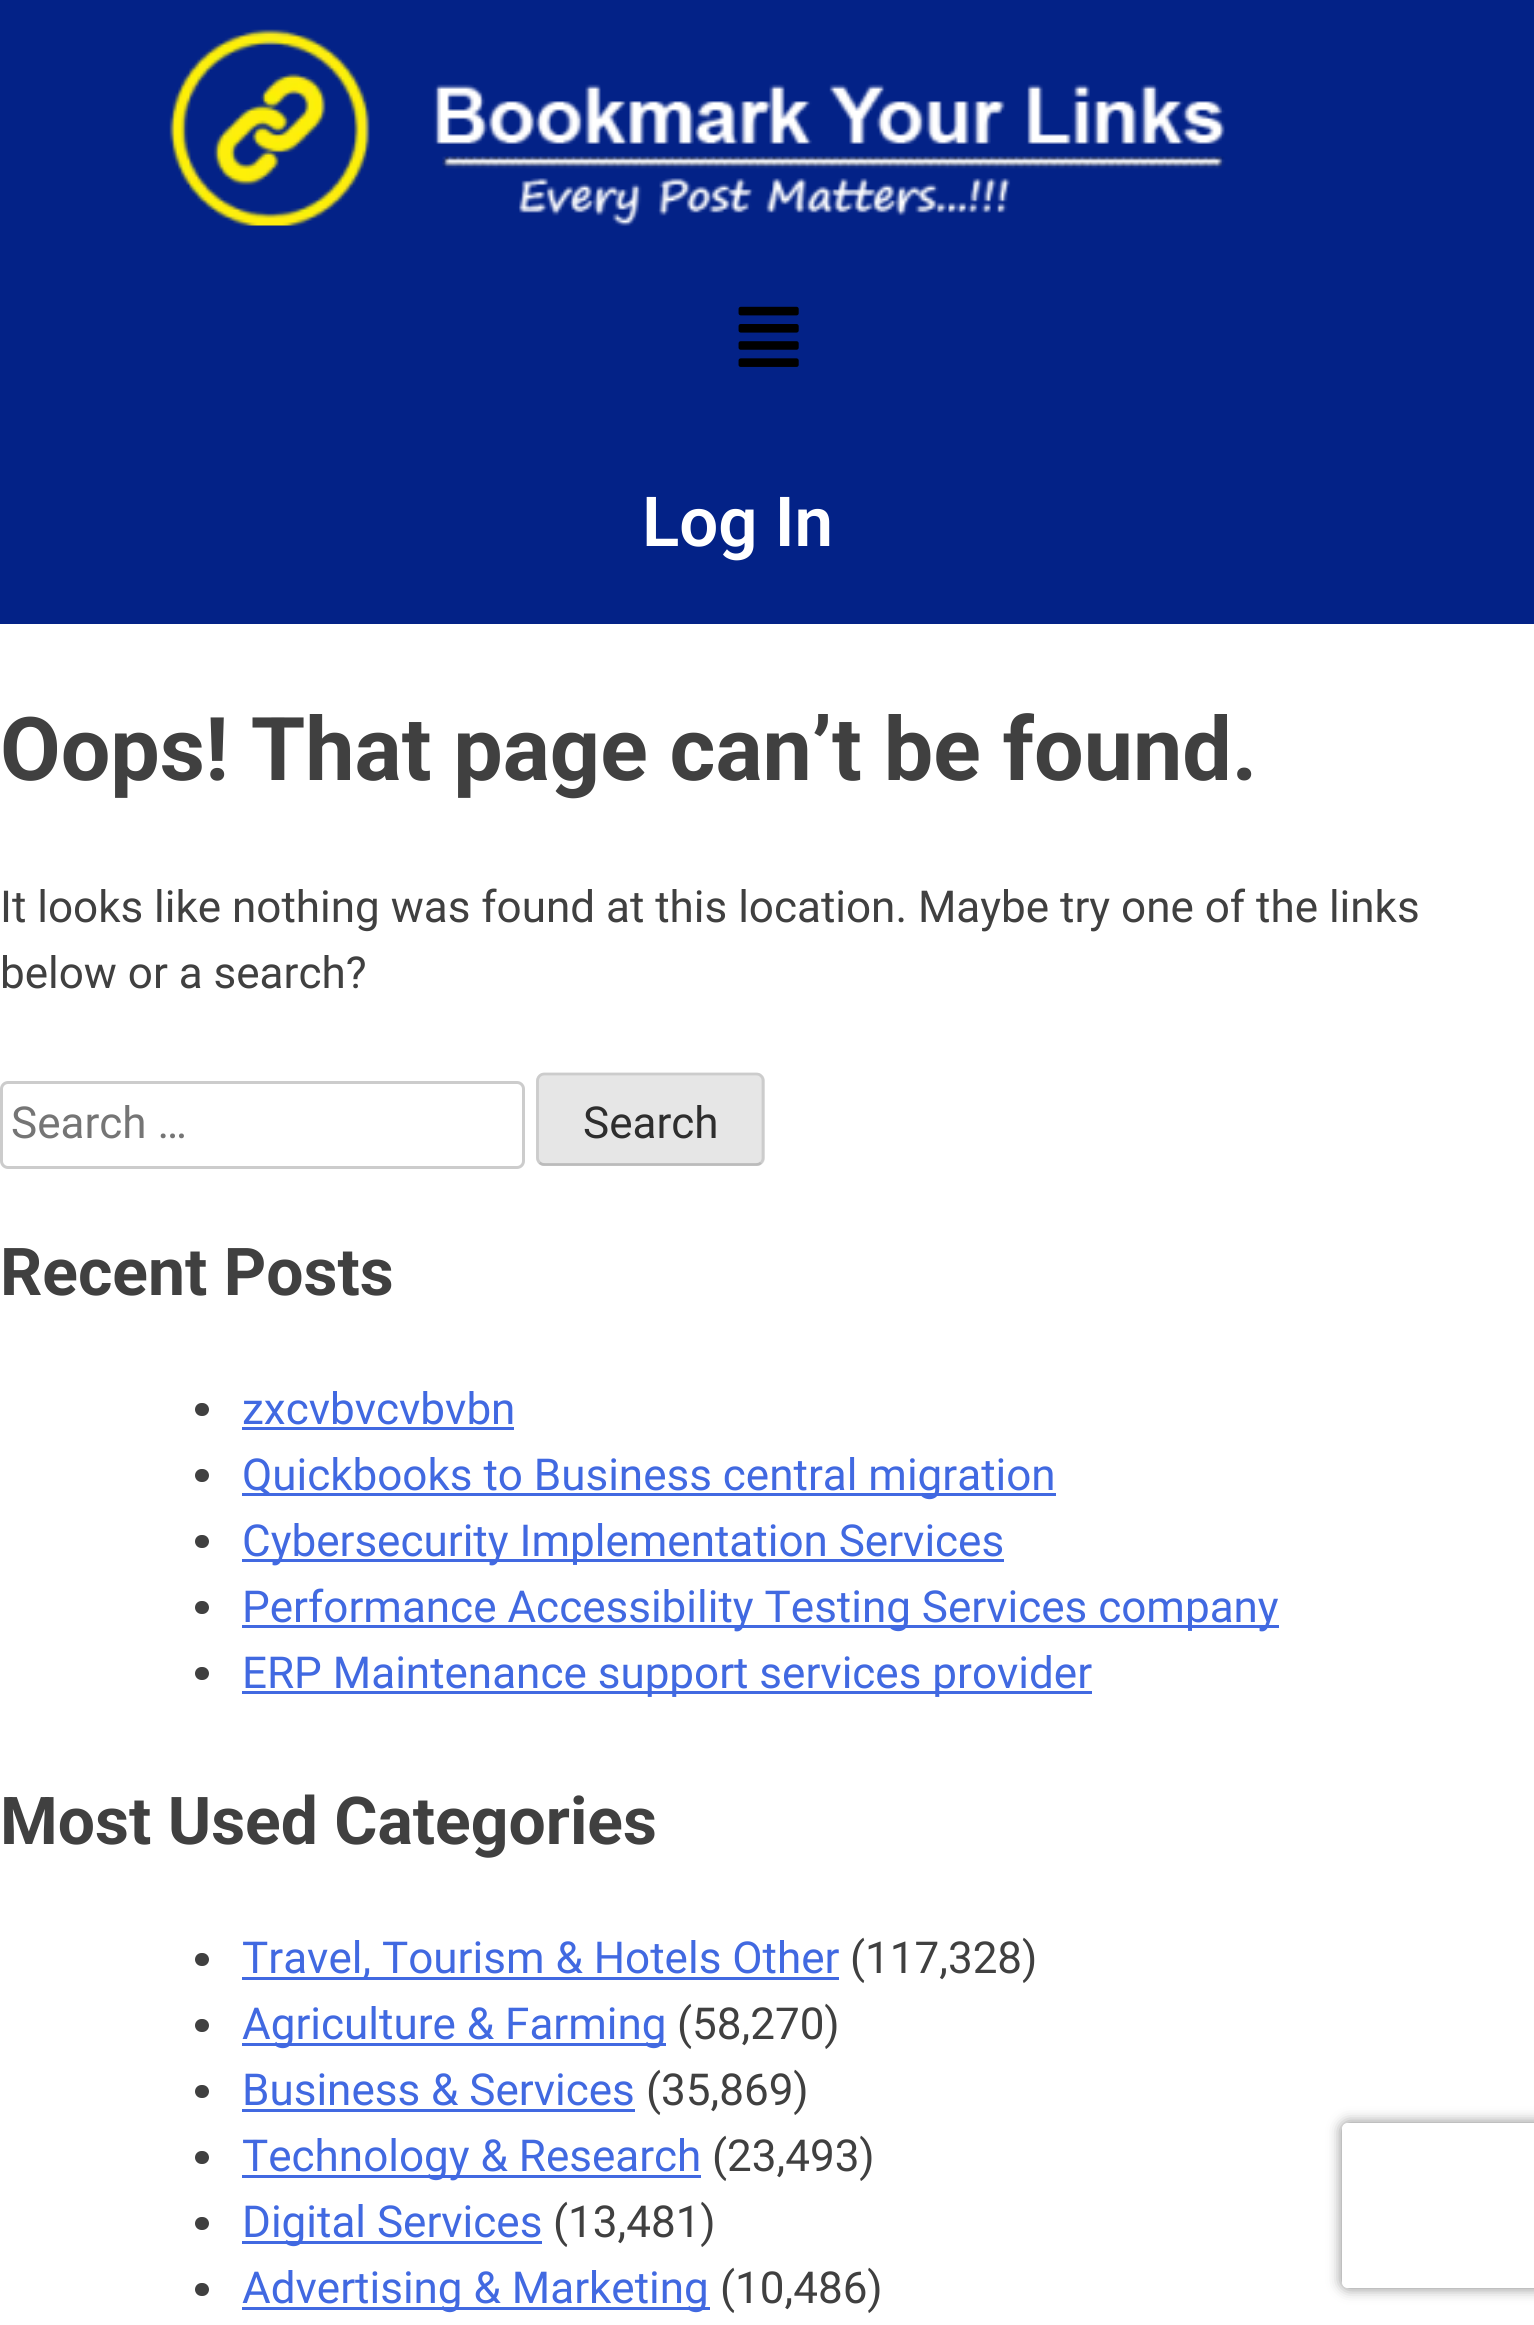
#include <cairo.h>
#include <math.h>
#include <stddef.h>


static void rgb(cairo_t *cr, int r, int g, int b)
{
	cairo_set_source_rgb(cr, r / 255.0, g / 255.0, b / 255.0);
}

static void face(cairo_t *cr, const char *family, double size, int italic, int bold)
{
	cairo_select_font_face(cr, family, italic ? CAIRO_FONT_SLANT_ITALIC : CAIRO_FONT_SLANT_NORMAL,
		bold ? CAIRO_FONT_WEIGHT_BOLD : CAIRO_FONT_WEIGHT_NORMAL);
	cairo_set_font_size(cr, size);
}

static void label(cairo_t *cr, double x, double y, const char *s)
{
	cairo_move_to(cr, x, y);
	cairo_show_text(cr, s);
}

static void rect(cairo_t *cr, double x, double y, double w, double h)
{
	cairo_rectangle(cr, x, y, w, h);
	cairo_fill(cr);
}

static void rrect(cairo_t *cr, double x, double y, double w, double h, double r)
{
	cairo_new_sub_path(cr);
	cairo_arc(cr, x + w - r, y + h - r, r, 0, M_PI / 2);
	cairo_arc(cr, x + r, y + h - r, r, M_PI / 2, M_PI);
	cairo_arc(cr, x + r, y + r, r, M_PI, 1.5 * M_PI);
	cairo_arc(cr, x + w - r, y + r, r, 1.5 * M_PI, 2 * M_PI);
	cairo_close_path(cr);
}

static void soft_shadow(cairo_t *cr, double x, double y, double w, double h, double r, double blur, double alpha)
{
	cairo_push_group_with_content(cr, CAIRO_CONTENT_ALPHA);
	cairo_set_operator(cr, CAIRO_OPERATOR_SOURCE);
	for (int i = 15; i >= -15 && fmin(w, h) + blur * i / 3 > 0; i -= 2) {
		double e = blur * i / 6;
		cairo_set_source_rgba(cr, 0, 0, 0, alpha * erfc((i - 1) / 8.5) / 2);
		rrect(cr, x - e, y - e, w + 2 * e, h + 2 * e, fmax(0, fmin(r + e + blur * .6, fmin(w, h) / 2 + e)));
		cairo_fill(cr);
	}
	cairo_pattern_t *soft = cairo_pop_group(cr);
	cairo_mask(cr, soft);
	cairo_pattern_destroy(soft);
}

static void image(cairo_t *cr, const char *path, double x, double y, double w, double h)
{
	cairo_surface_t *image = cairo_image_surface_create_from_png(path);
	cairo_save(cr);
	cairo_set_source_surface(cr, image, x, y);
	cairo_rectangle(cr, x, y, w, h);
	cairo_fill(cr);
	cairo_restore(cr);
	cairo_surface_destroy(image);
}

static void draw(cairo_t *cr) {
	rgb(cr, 255, 255, 255);
	cairo_paint(cr);
	rgb(cr, 3, 34, 135);
	rect(cr, 0, 0, 1534, 624);
	image(cr, "image0.png", 169, 29, 1056, 197);
	image(cr, "image1.png", 738, 306, 61, 61);
	face(cr, "Roboto SemiBold", 69, 0, 0);
	rgb(cr, 255, 255, 255);
	label(cr, 642, 546, "Log In");
	face(cr, "Roboto", 88, 0, 1);
	rgb(cr, 64, 64, 64);
	label(cr, 0, 780, "Oops! That page can’t be found.");
	face(cr, "Roboto", 44, 0, 0);
	label(cr, 0, 922, "It looks like nothing was found at this location. Maybe try one of the links");
	label(cr, 0, 988, "below or a search?");
	rrect(cr, 1.5, 1082.5, 522, 85, 6.5);
	rgb(cr, 204, 204, 204);
	cairo_set_line_width(cr, 3);
	cairo_stroke(cr);
	rgb(cr, 117, 117, 117);
	label(cr, 11, 1138, "Search …");
	rgb(cr, 230, 230, 230);
	rrect(cr, 536, 1073, 229, 93, 8);
	cairo_fill(cr);
	cairo_new_path(cr);
	cairo_move_to(cr, 761, 1162.5);
	cairo_curve_to(cr, 760, 1164, 758, 1164.5, 756, 1164.5);
	cairo_line_to(cr, 544.5, 1164.5);
	cairo_curve_to(cr, 542.5, 1164.5, 541, 1164, 539.5, 1162.5);
	rgb(cr, 187, 187, 187);
	cairo_set_line_width(cr, 2.8);
	cairo_stroke(cr);
	cairo_new_path(cr);
	cairo_move_to(cr, 539.5, 1162.5);
	cairo_curve_to(cr, 538.5, 1161.5, 537.5, 1159.5, 537.5, 1158);
	cairo_line_to(cr, 537.5, 1081);
	cairo_curve_to(cr, 537.5, 1079, 538.5, 1077, 539.5, 1076);
	cairo_curve_to(cr, 541, 1074.5, 542.5, 1074, 544.5, 1074);
	cairo_line_to(cr, 756, 1074);
	cairo_curve_to(cr, 758, 1074, 760, 1074.5, 761, 1076);
	cairo_curve_to(cr, 762.5, 1077, 763, 1079, 763, 1081);
	cairo_line_to(cr, 763, 1158);
	cairo_curve_to(cr, 763, 1159.5, 762.5, 1161.5, 761, 1162.5);
	rgb(cr, 204, 204, 204);
	cairo_stroke(cr);
	rgb(cr, 46, 46, 46);
	label(cr, 583, 1138, "Search");
	face(cr, "Roboto", 66, 0, 1);
	rgb(cr, 64, 64, 64);
	label(cr, 0, 1295, "Recent Posts");
	rrect(cr, 195, 1403, 14, 13, 6.5);
	cairo_fill(cr);
	face(cr, "Roboto", 44, 0, 0);
	rgb(cr, 65, 105, 225);
	label(cr, 242, 1424, "zxcvbvcvbvbn");
	rect(cr, 242, 1427, 272, 3);
	rgb(cr, 64, 64, 64);
	rrect(cr, 195, 1469, 14, 13, 6.5);
	cairo_fill(cr);
	rgb(cr, 65, 105, 225);
	rect(cr, 242, 1493, 814, 3);
	label(cr, 242, 1490, "Quickbooks to Business central migration");
	rgb(cr, 64, 64, 64);
	rrect(cr, 195, 1535, 14, 13, 6.5);
	cairo_fill(cr);
	rgb(cr, 65, 105, 225);
	rect(cr, 242, 1559, 762, 3);
	label(cr, 242, 1556, "Cybersecurity Implementation Services");
	rgb(cr, 64, 64, 64);
	rrect(cr, 195, 1601, 14, 13, 6.5);
	cairo_fill(cr);
	rgb(cr, 65, 105, 225);
	rect(cr, 242, 1625, 1037, 3);
	label(cr, 242, 1622, "Performance Accessibility Testing Services company");
	rgb(cr, 64, 64, 64);
	rrect(cr, 195, 1667, 14, 13, 6.5);
	cairo_fill(cr);
	rgb(cr, 65, 105, 225);
	rect(cr, 242, 1691, 850, 3);
	label(cr, 242, 1688, "ERP Maintenance support services provider");
	face(cr, "Roboto", 66, 0, 1);
	rgb(cr, 64, 64, 64);
	label(cr, 0, 1844, "Most Used Categories");
	rrect(cr, 195, 1953, 14, 13, 6.5);
	cairo_fill(cr);
	rgb(cr, 65, 105, 225);
	rect(cr, 242, 1977, 597, 3);
	face(cr, "Roboto", 44, 0, 0);
	label(cr, 242, 1973, "Travel, Tourism & Hotels Other");
	rgb(cr, 64, 64, 64);
	label(cr, 850, 1973, "(117,328)");
	rrect(cr, 195, 2019, 14, 13, 6.5);
	cairo_fill(cr);
	rgb(cr, 65, 105, 225);
	rect(cr, 242, 2043, 424, 3);
	label(cr, 242, 2039, "Agriculture & Farming");
	rgb(cr, 64, 64, 64);
	label(cr, 677, 2039, "(58,270)");
	rrect(cr, 195, 2085, 14, 13, 6.5);
	cairo_fill(cr);
	rgb(cr, 65, 105, 225);
	label(cr, 242, 2105, "Business & Services");
	rect(cr, 242, 2109, 393, 3);
	rgb(cr, 64, 64, 64);
	label(cr, 646, 2105, "(35,869)");
	rrect(cr, 195, 2151, 14, 13, 6.5);
	cairo_fill(cr);
	rgb(cr, 65, 105, 225);
	rect(cr, 242, 2175, 459, 3);
	label(cr, 242, 2171, "Technology & Research");
	rgb(cr, 64, 64, 64);
	label(cr, 712, 2171, "(23,493)");
	rrect(cr, 195, 2217, 14, 13, 6.5);
	cairo_fill(cr);
	rgb(cr, 65, 105, 225);
	rect(cr, 242, 2241, 300, 3);
	label(cr, 242, 2237, "Digital Services");
	rgb(cr, 64, 64, 64);
	label(cr, 553, 2237, "(13,481)");
	rrect(cr, 195, 2283, 14, 13, 6.5);
	cairo_fill(cr);
	rgb(cr, 65, 105, 225);
	rect(cr, 242, 2307, 468, 3);
	label(cr, 242, 2303, "Advertising & Marketing");
	rgb(cr, 64, 64, 64);
	label(cr, 720, 2303, "(10,486)");
	cairo_save(cr);
	cairo_set_fill_rule(cr, CAIRO_FILL_RULE_EVEN_ODD);
	cairo_new_path(cr);
	cairo_move_to(cr, 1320, 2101);
	cairo_line_to(cr, 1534, 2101);
	cairo_line_to(cr, 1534, 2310);
	cairo_line_to(cr, 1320, 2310);
	cairo_close_path(cr);
	cairo_move_to(cr, 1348, 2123);
	cairo_line_to(cr, 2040, 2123);
	cairo_curve_to(cr, 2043.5, 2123, 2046, 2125.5, 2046, 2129);
	cairo_line_to(cr, 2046, 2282);
	cairo_curve_to(cr, 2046, 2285.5, 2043.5, 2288, 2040, 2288);
	cairo_line_to(cr, 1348, 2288);
	cairo_curve_to(cr, 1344.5, 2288, 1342, 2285.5, 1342, 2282);
	cairo_line_to(cr, 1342, 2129);
	cairo_curve_to(cr, 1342, 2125.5, 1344.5, 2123, 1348, 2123);
	cairo_close_path(cr);
	cairo_clip(cr);
	rgb(cr, 128, 128, 128);
	soft_shadow(cr, 1342, 2123, 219, 165, 6, 7, 1);
	cairo_restore(cr);
}

int main(void) {
	cairo_surface_t *surface = cairo_image_surface_create(CAIRO_FORMAT_RGB24, 1534, 2325);
	cairo_t *cr = cairo_create(surface);
	cairo_font_options_t *options = cairo_font_options_create();
	cairo_font_options_set_hint_metrics(options, CAIRO_HINT_METRICS_OFF);
	cairo_font_options_set_hint_style(options, CAIRO_HINT_STYLE_NONE);
	cairo_set_font_options(cr, options);
	cairo_set_miter_limit(cr, 4);
	draw(cr);
	cairo_surface_write_to_png(surface, "render.png");
	cairo_font_options_destroy(options);
	cairo_destroy(cr);
	cairo_surface_destroy(surface);
	return 0;
}
